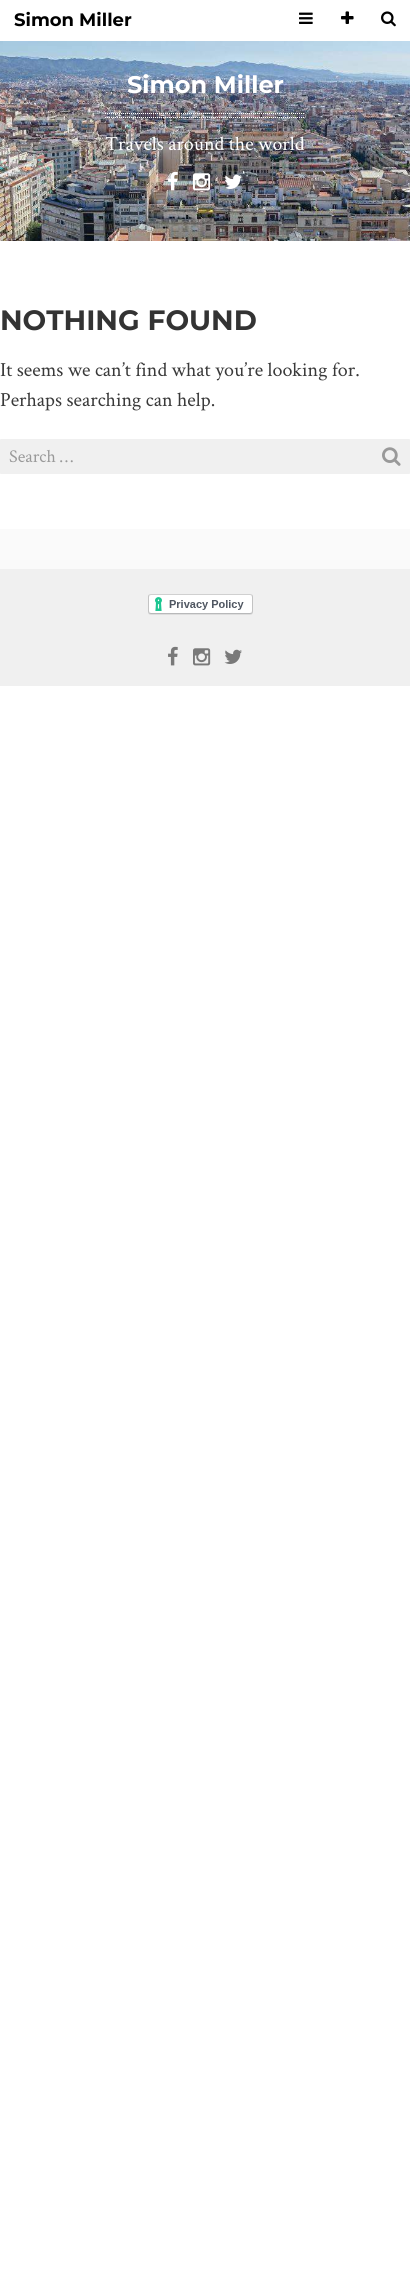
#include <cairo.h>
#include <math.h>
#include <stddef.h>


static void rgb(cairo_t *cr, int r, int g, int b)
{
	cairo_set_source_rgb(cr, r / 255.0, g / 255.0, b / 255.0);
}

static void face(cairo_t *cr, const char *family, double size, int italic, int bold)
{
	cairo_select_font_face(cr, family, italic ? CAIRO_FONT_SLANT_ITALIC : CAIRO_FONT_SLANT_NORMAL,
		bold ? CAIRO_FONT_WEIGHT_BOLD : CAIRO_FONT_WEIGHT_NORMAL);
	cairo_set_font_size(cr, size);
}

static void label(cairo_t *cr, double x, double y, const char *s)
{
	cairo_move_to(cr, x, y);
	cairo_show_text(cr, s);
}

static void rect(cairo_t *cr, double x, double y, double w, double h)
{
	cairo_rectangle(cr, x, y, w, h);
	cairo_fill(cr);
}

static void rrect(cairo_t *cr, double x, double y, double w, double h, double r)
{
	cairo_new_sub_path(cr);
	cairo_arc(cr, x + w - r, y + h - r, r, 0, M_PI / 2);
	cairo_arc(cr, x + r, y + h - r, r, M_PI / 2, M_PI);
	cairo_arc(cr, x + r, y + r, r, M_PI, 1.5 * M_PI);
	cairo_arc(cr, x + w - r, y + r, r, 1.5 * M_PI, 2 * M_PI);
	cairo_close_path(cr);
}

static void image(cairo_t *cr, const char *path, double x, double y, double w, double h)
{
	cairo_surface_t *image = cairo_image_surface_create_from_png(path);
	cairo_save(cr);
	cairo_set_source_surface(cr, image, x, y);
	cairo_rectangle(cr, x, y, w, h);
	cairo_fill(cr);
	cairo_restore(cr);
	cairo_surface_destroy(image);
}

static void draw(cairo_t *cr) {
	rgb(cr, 255, 255, 255);
	cairo_paint(cr);
	face(cr, "Montserrat", 18, 0, 1);
	rgb(cr, 0, 0, 0);
	label(cr, 14, 26, "Simon Miller");
	image(cr, "image0.png", 299, 12, 14, 12);
	image(cr, "image1.png", 341, 11, 13, 13);
	image(cr, "image2.png", 381, 11, 15, 16);
	image(cr, "image3.png", 0, 41, 410, 200);
	face(cr, "Montserrat", 24, 0, 1);
	rgb(cr, 255, 255, 255);
	label(cr, 127, 93, "Simon Miller");
	cairo_new_path(cr);
	cairo_move_to(cr, 105, 113.5);
	cairo_line_to(cr, 305, 113.5);
	cairo_set_line_width(cr, 1);
	cairo_set_dash(cr, (double[]){1, 1}, 2, 0);
	cairo_stroke(cr);
	cairo_new_path(cr);
	cairo_move_to(cr, 105, 117.5);
	cairo_line_to(cr, 305, 117.5);
	cairo_stroke(cr);
	face(cr, "Crimson Text", 20, 0, 0);
	label(cr, 105, 150, "Travels around the world");
	image(cr, "image4.png", 168, 171, 10, 20);
	image(cr, "image5.png", 193, 173, 18, 18);
	image(cr, "image6.png", 224, 174, 18, 15);
	face(cr, "Montserrat", 28, 0, 1);
	rgb(cr, 51, 51, 51);
	label(cr, 0, 330, "NOTHING FOUND");
	face(cr, "Crimson Text", 20, 0, 0);
	rgb(cr, 57, 57, 57);
	label(cr, 0, 376, "It seems we can’t find what you’re looking for.");
	label(cr, 0, 406, "Perhaps searching can help.");
	rgb(cr, 240, 240, 240);
	rrect(cr, 0.5, 439.5, 409, 34, 0.5);
	cairo_fill_preserve(cr);
	cairo_set_dash(cr, NULL, 0, 0);
	cairo_stroke(cr);
	face(cr, "Crimson Text", 18, 0, 0);
	rgb(cr, 153, 153, 153);
	label(cr, 9, 462, "Search …");
	image(cr, "image7.png", 382, 447, 19, 19);
	rgb(cr, 250, 250, 250);
	rect(cr, 0, 529, 410, 40);
	rgb(cr, 240, 240, 240);
	rect(cr, 0, 569, 410, 117);
	image(cr, "image8.png", 148, 594, 105, 21);
	image(cr, "image9.png", 168, 646, 10, 20);
	image(cr, "image10.png", 193, 648, 18, 18);
	image(cr, "image11.png", 224, 649, 18, 15);
}

int main(void) {
	cairo_surface_t *surface = cairo_image_surface_create(CAIRO_FORMAT_RGB24, 410, 2291);
	cairo_t *cr = cairo_create(surface);
	cairo_font_options_t *options = cairo_font_options_create();
	cairo_font_options_set_hint_metrics(options, CAIRO_HINT_METRICS_OFF);
	cairo_font_options_set_hint_style(options, CAIRO_HINT_STYLE_NONE);
	cairo_set_font_options(cr, options);
	cairo_set_miter_limit(cr, 4);
	draw(cr);
	cairo_surface_write_to_png(surface, "render.png");
	cairo_font_options_destroy(options);
	cairo_destroy(cr);
	cairo_surface_destroy(surface);
	return 0;
}
